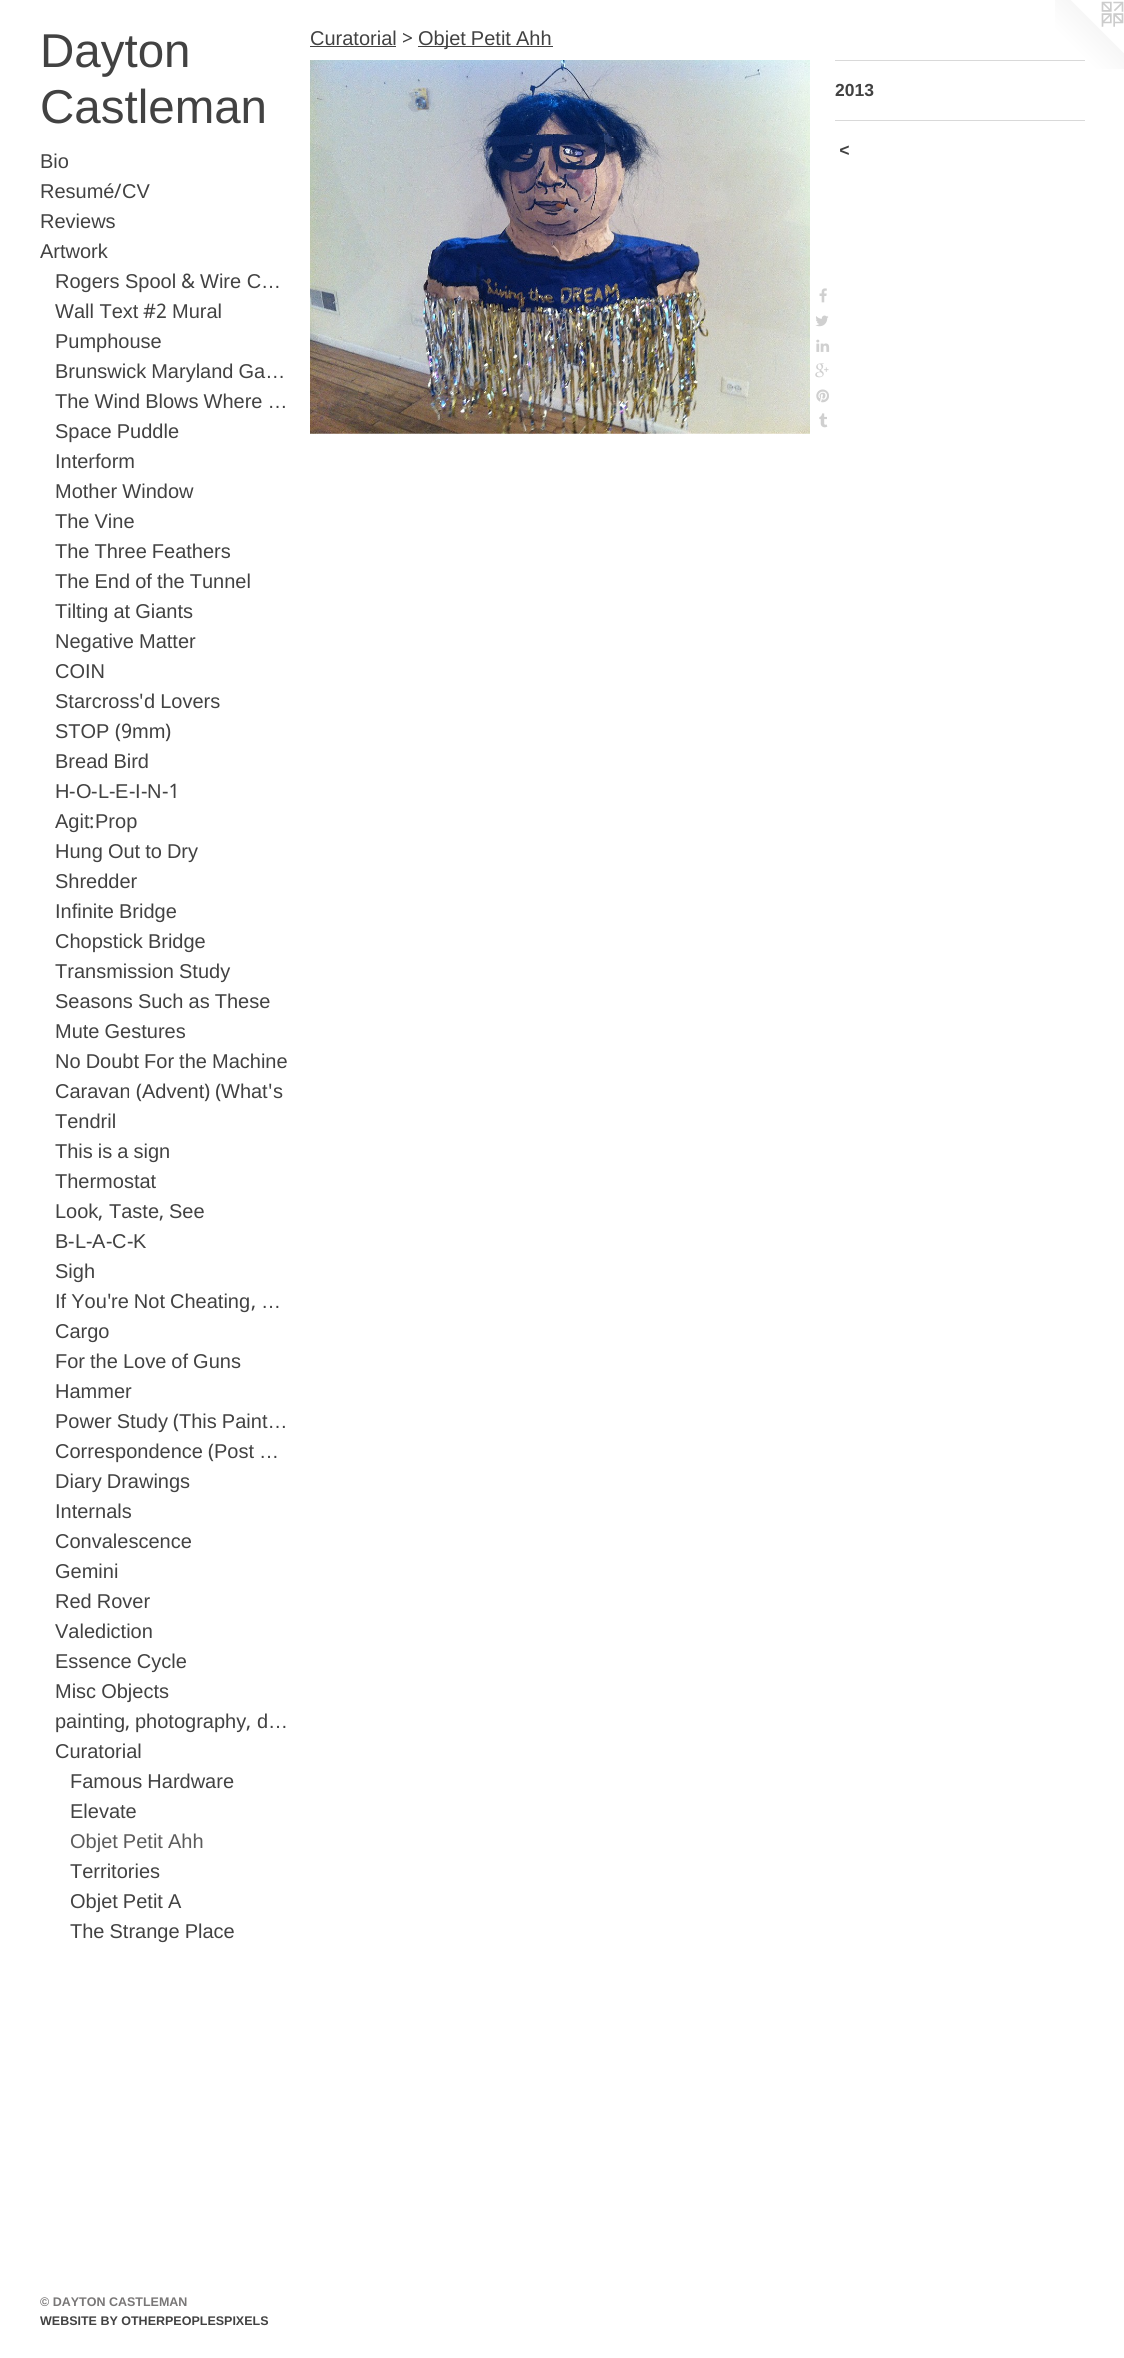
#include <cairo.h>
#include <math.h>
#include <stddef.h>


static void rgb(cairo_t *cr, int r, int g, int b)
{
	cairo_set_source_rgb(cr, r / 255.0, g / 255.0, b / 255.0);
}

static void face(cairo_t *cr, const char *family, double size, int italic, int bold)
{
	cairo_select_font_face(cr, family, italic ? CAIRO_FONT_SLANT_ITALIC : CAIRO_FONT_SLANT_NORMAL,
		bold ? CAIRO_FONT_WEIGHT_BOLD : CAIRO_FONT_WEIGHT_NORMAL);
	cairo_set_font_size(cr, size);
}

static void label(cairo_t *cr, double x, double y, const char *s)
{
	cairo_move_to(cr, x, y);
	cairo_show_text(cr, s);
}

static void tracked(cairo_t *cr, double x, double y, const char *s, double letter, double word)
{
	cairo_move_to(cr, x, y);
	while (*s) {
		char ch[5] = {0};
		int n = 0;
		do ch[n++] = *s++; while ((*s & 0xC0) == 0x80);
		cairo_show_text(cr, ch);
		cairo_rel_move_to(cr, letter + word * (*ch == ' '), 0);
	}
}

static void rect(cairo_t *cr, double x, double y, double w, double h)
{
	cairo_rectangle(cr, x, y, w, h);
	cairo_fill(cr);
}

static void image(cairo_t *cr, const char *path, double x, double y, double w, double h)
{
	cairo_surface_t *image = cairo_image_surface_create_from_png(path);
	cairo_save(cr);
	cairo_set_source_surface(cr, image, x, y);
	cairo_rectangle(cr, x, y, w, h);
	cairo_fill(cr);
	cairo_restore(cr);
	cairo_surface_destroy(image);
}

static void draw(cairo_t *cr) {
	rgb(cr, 255, 255, 255);
	cairo_paint(cr);
	face(cr, "Liberation Sans", 47.5, 0, 0);
	rgb(cr, 66, 66, 66);
	label(cr, 40, 67, "Dayton");
	label(cr, 40, 123, "Castleman");
	face(cr, "Liberation Sans", 20, 0, 0);
	label(cr, 40, 168, "Bio");
	label(cr, 40, 198, "Resumé");
	face(cr, "Khmer", 20, 0, 0);
	label(cr, 114, 198, "/");
	face(cr, "Liberation Sans", 20, 0, 0);
	label(cr, 122, 198, "CV");
	label(cr, 40, 228, "Reviews");
	label(cr, 40, 258, "Artwork");
	label(cr, 55, 288, "Rogers Spool");
	face(cr, "Khmer", 20, 0, 0);
	label(cr, 181, 288, "&");
	face(cr, "Liberation Sans", 20, 0, 0);
	label(cr, 200, 288, "Wire C…");
	label(cr, 55, 318, "Wall Text");
	face(cr, "Khmer", 20, 0, 0);
	label(cr, 143, 318, "#2");
	face(cr, "Liberation Sans", 20, 0, 0);
	label(cr, 172, 318, "Mural");
	label(cr, 55, 348, "Pumphouse");
	tracked(cr, 55, 378, "Brunswick Maryland Ga…", 0, -0.5);
	tracked(cr, 55, 408, "The Wind Blows Where …", 0, -0.5);
	tracked(cr, 55, 438, "Space Puddle", 0, -0.5);
	label(cr, 55, 468, "Interform");
	tracked(cr, 55, 498, "Mother Window", 0, -0.5);
	tracked(cr, 55, 528, "The Vine", 0, -0.5);
	tracked(cr, 55, 558, "The Three Feathers", 0, -0.5);
	tracked(cr, 55, 588, "The End of the Tunnel", 0, -0.5);
	tracked(cr, 55, 618, "Tilting at Giants", 0, -0.5);
	tracked(cr, 55, 648, "Negative Matter", 0, -0.5);
	label(cr, 55, 678, "COIN");
	label(cr, 55, 708, "Starcross");
	face(cr, "Khmer", 20, 0, 0);
	label(cr, 139, 708, "'");
	face(cr, "Liberation Sans", 20, 0, 0);
	tracked(cr, 144, 708, "d Lovers", 0, -0.5);
	label(cr, 55, 738, "STOP");
	face(cr, "Khmer", 20, 0, 0);
	label(cr, 115, 738, "(9");
	face(cr, "Liberation Sans", 20, 0, 0);
	label(cr, 132, 738, "mm");
	face(cr, "Khmer", 20, 0, 0);
	label(cr, 165, 738, ")");
	face(cr, "Liberation Sans", 20, 0, 0);
	tracked(cr, 55, 768, "Bread Bird", 0, -0.5);
	label(cr, 55, 798, "H");
	face(cr, "Khmer", 20, 0, 0);
	label(cr, 69, 798, "-");
	face(cr, "Liberation Sans", 20, 0, 0);
	label(cr, 76, 798, "O");
	face(cr, "Khmer", 20, 0, 0);
	label(cr, 91, 798, "-");
	face(cr, "Liberation Sans", 20, 0, 0);
	label(cr, 98, 798, "L");
	face(cr, "Khmer", 20, 0, 0);
	label(cr, 109, 798, "-");
	face(cr, "Liberation Sans", 20, 0, 0);
	label(cr, 115, 798, "E");
	face(cr, "Khmer", 20, 0, 0);
	label(cr, 129, 798, "-");
	face(cr, "Liberation Sans", 20, 0, 0);
	label(cr, 135, 798, "I");
	face(cr, "Khmer", 20, 0, 0);
	label(cr, 141, 798, "-");
	face(cr, "Liberation Sans", 20, 0, 0);
	label(cr, 147, 798, "N");
	face(cr, "Khmer", 20, 0, 0);
	label(cr, 162, 798, "-1");
	face(cr, "Liberation Sans", 20, 0, 0);
	label(cr, 55, 828, "Agit Prop");
	face(cr, "Khmer", 20, 0, 0);
	label(cr, 89, 828, ":");
	face(cr, "Liberation Sans", 20, 0, 0);
	tracked(cr, 55, 858, "Hung Out to Dry", 0, -0.5);
	label(cr, 55, 888, "Shredder");
	tracked(cr, 55, 918, "Infinite Bridge", 0, -0.5);
	tracked(cr, 55, 948, "Chopstick Bridge", 0, -0.5);
	tracked(cr, 55, 978, "Transmission Study", 0, -0.5);
	tracked(cr, 55, 1008, "Seasons Such as These", 0, -0.5);
	tracked(cr, 55, 1038, "Mute Gestures", 0, -0.5);
	tracked(cr, 55, 1068, "No Doubt For the Machine", 0, -0.5);
	label(cr, 55, 1098, "Caravan");
	face(cr, "Khmer", 20, 0, 0);
	label(cr, 136, 1098, "(");
	face(cr, "Liberation Sans", 20, 0, 0);
	label(cr, 142, 1098, "Advent");
	face(cr, "Khmer", 20, 0, 0);
	label(cr, 204, 1098, ") (");
	face(cr, "Liberation Sans", 20, 0, 0);
	label(cr, 221, 1098, "What");
	face(cr, "Khmer", 20, 0, 0);
	label(cr, 268, 1098, "'");
	face(cr, "Liberation Sans", 20, 0, 0);
	label(cr, 273, 1098, "s");
	label(cr, 55, 1128, "Tendril");
	tracked(cr, 55, 1158, "This is a sign", 0, -0.5);
	label(cr, 55, 1188, "Thermostat");
	label(cr, 55, 1218, "Look");
	face(cr, "Khmer", 20, 0, 0);
	label(cr, 98, 1218, ",");
	face(cr, "Liberation Sans", 20, 0, 0);
	label(cr, 109, 1218, "Taste");
	face(cr, "Khmer", 20, 0, 0);
	label(cr, 159, 1218, ",");
	face(cr, "Liberation Sans", 20, 0, 0);
	label(cr, 169, 1218, "See");
	label(cr, 55, 1248, "B");
	face(cr, "Khmer", 20, 0, 0);
	label(cr, 68, 1248, "-");
	face(cr, "Liberation Sans", 20, 0, 0);
	label(cr, 75, 1248, "L");
	face(cr, "Khmer", 20, 0, 0);
	label(cr, 86, 1248, "-");
	face(cr, "Liberation Sans", 20, 0, 0);
	label(cr, 92, 1248, "A");
	face(cr, "Khmer", 20, 0, 0);
	label(cr, 106, 1248, "-");
	face(cr, "Liberation Sans", 20, 0, 0);
	label(cr, 112, 1248, "C");
	face(cr, "Khmer", 20, 0, 0);
	label(cr, 127, 1248, "-");
	face(cr, "Liberation Sans", 20, 0, 0);
	label(cr, 133, 1248, "K");
	label(cr, 55, 1278, "Sigh");
	tracked(cr, 55, 1308, "If You", 0, -0.5);
	face(cr, "Khmer", 20, 0, 0);
	label(cr, 107, 1308, "'");
	face(cr, "Liberation Sans", 20, 0, 0);
	tracked(cr, 111, 1308, "re Not Cheating", 0, -0.5);
	face(cr, "Khmer", 20, 0, 0);
	label(cr, 251, 1308, ",");
	face(cr, "Liberation Sans", 20, 0, 0);
	label(cr, 261, 1308, "…");
	label(cr, 55, 1338, "Cargo");
	tracked(cr, 55, 1368, "For the Love of Guns", 0, -0.5);
	label(cr, 55, 1398, "Hammer");
	tracked(cr, 55, 1428, "Power Study", 0, -0.5);
	face(cr, "Khmer", 20, 0, 0);
	label(cr, 173, 1428, "(");
	face(cr, "Liberation Sans", 20, 0, 0);
	tracked(cr, 179, 1428, "This Paint…", 0, -0.5);
	label(cr, 55, 1458, "Correspondence");
	face(cr, "Khmer", 20, 0, 0);
	label(cr, 208, 1458, "(");
	face(cr, "Liberation Sans", 20, 0, 0);
	tracked(cr, 214, 1458, "Post …", 0, -0.5);
	tracked(cr, 55, 1488, "Diary Drawings", 0, -0.5);
	label(cr, 55, 1518, "Internals");
	label(cr, 55, 1548, "Convalescence");
	label(cr, 55, 1578, "Gemini");
	tracked(cr, 55, 1608, "Red Rover", 0, -0.5);
	label(cr, 55, 1638, "Valediction");
	tracked(cr, 55, 1668, "Essence Cycle", 0, -0.5);
	tracked(cr, 55, 1698, "Misc Objects", 0, -0.5);
	label(cr, 55, 1728, "painting");
	face(cr, "Khmer", 20, 0, 0);
	label(cr, 125, 1728, ",");
	face(cr, "Liberation Sans", 20, 0, 0);
	label(cr, 135, 1728, "photography");
	face(cr, "Khmer", 20, 0, 0);
	label(cr, 246, 1728, ",");
	face(cr, "Liberation Sans", 20, 0, 0);
	label(cr, 257, 1728, "d…");
	label(cr, 55, 1758, "Curatorial");
	tracked(cr, 70, 1788, "Famous Hardware", 0, -0.5);
	label(cr, 70, 1818, "Elevate");
	rgb(cr, 92, 92, 92);
	tracked(cr, 70, 1848, "Objet Petit Ahh", 0, -0.5);
	rgb(cr, 66, 66, 66);
	label(cr, 70, 1878, "Territories");
	tracked(cr, 70, 1908, "Objet Petit A", 0, -0.5);
	tracked(cr, 70, 1938, "The Strange Place", 0, -0.5);
	face(cr, "Liberation Sans", 12.5, 0, 1);
	rgb(cr, 121, 119, 119);
	label(cr, 40, 2306, "© DAYTON CASTLEMAN");
	rgb(cr, 66, 66, 66);
	label(cr, 40, 2325, "WEBSITE BY OTHERPEOPLESPIXELS");
	face(cr, "Liberation Sans", 20, 0, 0);
	label(cr, 310, 45, "Curatorial");
	rect(cr, 310, 46, 86, 1);
	face(cr, "Khmer", 20, 0, 0);
	label(cr, 402, 45, ">");
	rect(cr, 418, 46, 135, 1);
	face(cr, "Liberation Sans", 20, 0, 0);
	tracked(cr, 418, 45, "Objet Petit Ahh", 0, -0.5);
	image(cr, "image0.png", 310, 60, 500, 374);
	image(cr, "image1.png", 819, 288, 8, 15);
	image(cr, "image2.png", 815, 315, 14, 12);
	image(cr, "image3.png", 816, 339, 14, 13);
	image(cr, "image4.png", 815, 363, 14, 15);
	image(cr, "image5.png", 816, 389, 13, 14);
	image(cr, "image6.png", 819, 413, 9, 15);
	image(cr, "image7.png", 1055, 0, 69, 69);
	rgb(cr, 217, 217, 217);
	rect(cr, 835, 60, 250, 1);
	face(cr, "Liberation Sans", 17.5, 0, 1);
	rgb(cr, 66, 66, 66);
	label(cr, 835, 96, "2013");
	rgb(cr, 217, 217, 217);
	rect(cr, 835, 120, 250, 1);
	face(cr, "Liberation Sans", 17.5, 1, 1);
	rgb(cr, 66, 66, 66);
	tracked(cr, 839, 156, "<", 1, 0);
}

int main(void) {
	cairo_surface_t *surface = cairo_image_surface_create(CAIRO_FORMAT_RGB24, 1124, 2358);
	cairo_t *cr = cairo_create(surface);
	cairo_font_options_t *options = cairo_font_options_create();
	cairo_font_options_set_hint_metrics(options, CAIRO_HINT_METRICS_OFF);
	cairo_font_options_set_hint_style(options, CAIRO_HINT_STYLE_NONE);
	cairo_set_font_options(cr, options);
	cairo_set_miter_limit(cr, 4);
	draw(cr);
	cairo_surface_write_to_png(surface, "render.png");
	cairo_font_options_destroy(options);
	cairo_destroy(cr);
	cairo_surface_destroy(surface);
	return 0;
}
